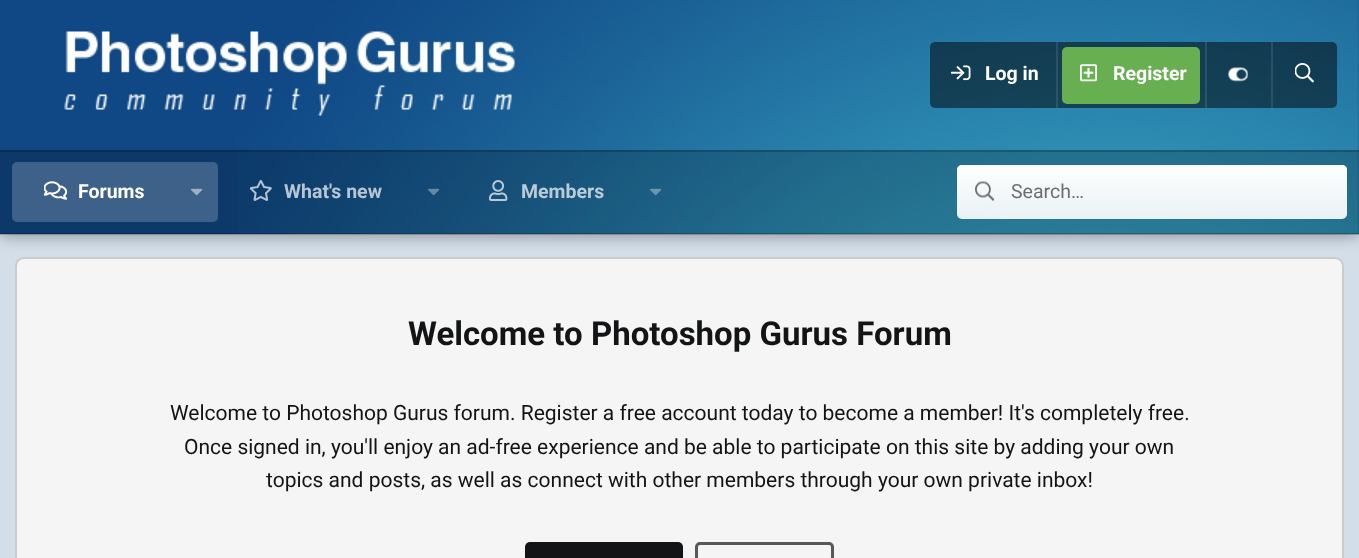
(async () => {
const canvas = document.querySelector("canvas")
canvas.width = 1359
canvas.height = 558
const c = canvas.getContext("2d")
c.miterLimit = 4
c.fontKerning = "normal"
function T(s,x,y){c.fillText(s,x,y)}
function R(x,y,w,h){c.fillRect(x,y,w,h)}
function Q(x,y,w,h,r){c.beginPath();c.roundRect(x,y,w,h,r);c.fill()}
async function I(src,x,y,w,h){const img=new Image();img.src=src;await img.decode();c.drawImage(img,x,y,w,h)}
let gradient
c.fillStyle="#d4dee9"
R(0,0,1359,558)
c.fillStyle="#f5f5f5"
c.beginPath()
c.roundRect(16,258,1327,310,8)
c.fill()
c.strokeStyle="#ccc"
c.lineWidth=2
c.stroke()
c.fillStyle="#00000059"
c.filter="blur(7.5px)"
c.beginPath()
c.rect(0,2,1359,234)
c.fill()
c.filter="none"
c.fillStyle="#104885"
R(0,0,1359,234)
await I("1.png",237,0,1122,234)
await I("2.png",64,31,451,85)
c.fillStyle="#00000080"
Q(930,42,407,66,5)
await I("3.png",951,65,20,16)
c.font="bold 19.5px Roboto"
c.fillStyle="#fff"
T("Log in",985,80)
c.fillStyle="#ffffff1a"
R(1056,42,2,66)
c.fillStyle="#67af51"
Q(1062,47,138,57,5)
await I("4.png",1080,64,17,18)
c.fillStyle="#fff"
T("Register",1113,80)
c.fillStyle="#ffffff1a"
R(1205,42,2,66)
await I("5.png",1228,67,20,15)
R(1271,42,2,66)
await I("6.png",1295,63,19,20)
c.fillStyle="#00000033"
R(0,150,1359,84)
R(0,150,1359,2)
R(0,233,1359,2)
c.fillStyle="#3d6188"
Q(12,162,206,60,5)
await I("7.png",44,181,24,19)
c.fillStyle="#fff"
T("Forums",78,198)
await I("8.png",191,188,12,8)
await I("9.png",249,180,23,21)
c.fillStyle="#b7c6d4"
T("What's new",284,198)
await I("10.png",428,188,12,8)
await I("11.png",489,180,19,21)
c.fillStyle="#baccd8"
T("Members",521,198)
await I("12.png",650,188,12,8)
c.fillStyle="#ffffffe6"
Q(957,165,390,54,5)
gradient = c.createLinearGradient(1152,165,1152,219)
gradient.addColorStop(0,"#fff")
gradient.addColorStop(1,"#ffffff00")
c.fillStyle = gradient
Q(957,165,390,54,5)
await I("13.png",975,181,20,20)
c.font="19.5px Roboto"
c.fillStyle="#6d6e6f"
T("Search…",1011,198)
c.font="bold 33px Roboto"
c.fillStyle="#121416"
T("Welcome to Photoshop Gurus Forum",408,345)
c.font="21px Roboto"
T("Welcome to Photoshop Gurus forum. Register a free account today to become a member! It's completely free.",170,420)
T("Once signed in, you'll enjoy an ad-free experience and be able to participate on this site by adding your own",184,454)
T("topics and posts, as well as connect with other members through your own private inbox!",266,487)
Q(525,542,158,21,5)
c.beginPath()
c.roundRect(696.5,543.5,136,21,3.5)
c.strokeStyle="#565859"
c.lineWidth=3
c.stroke()
})()
